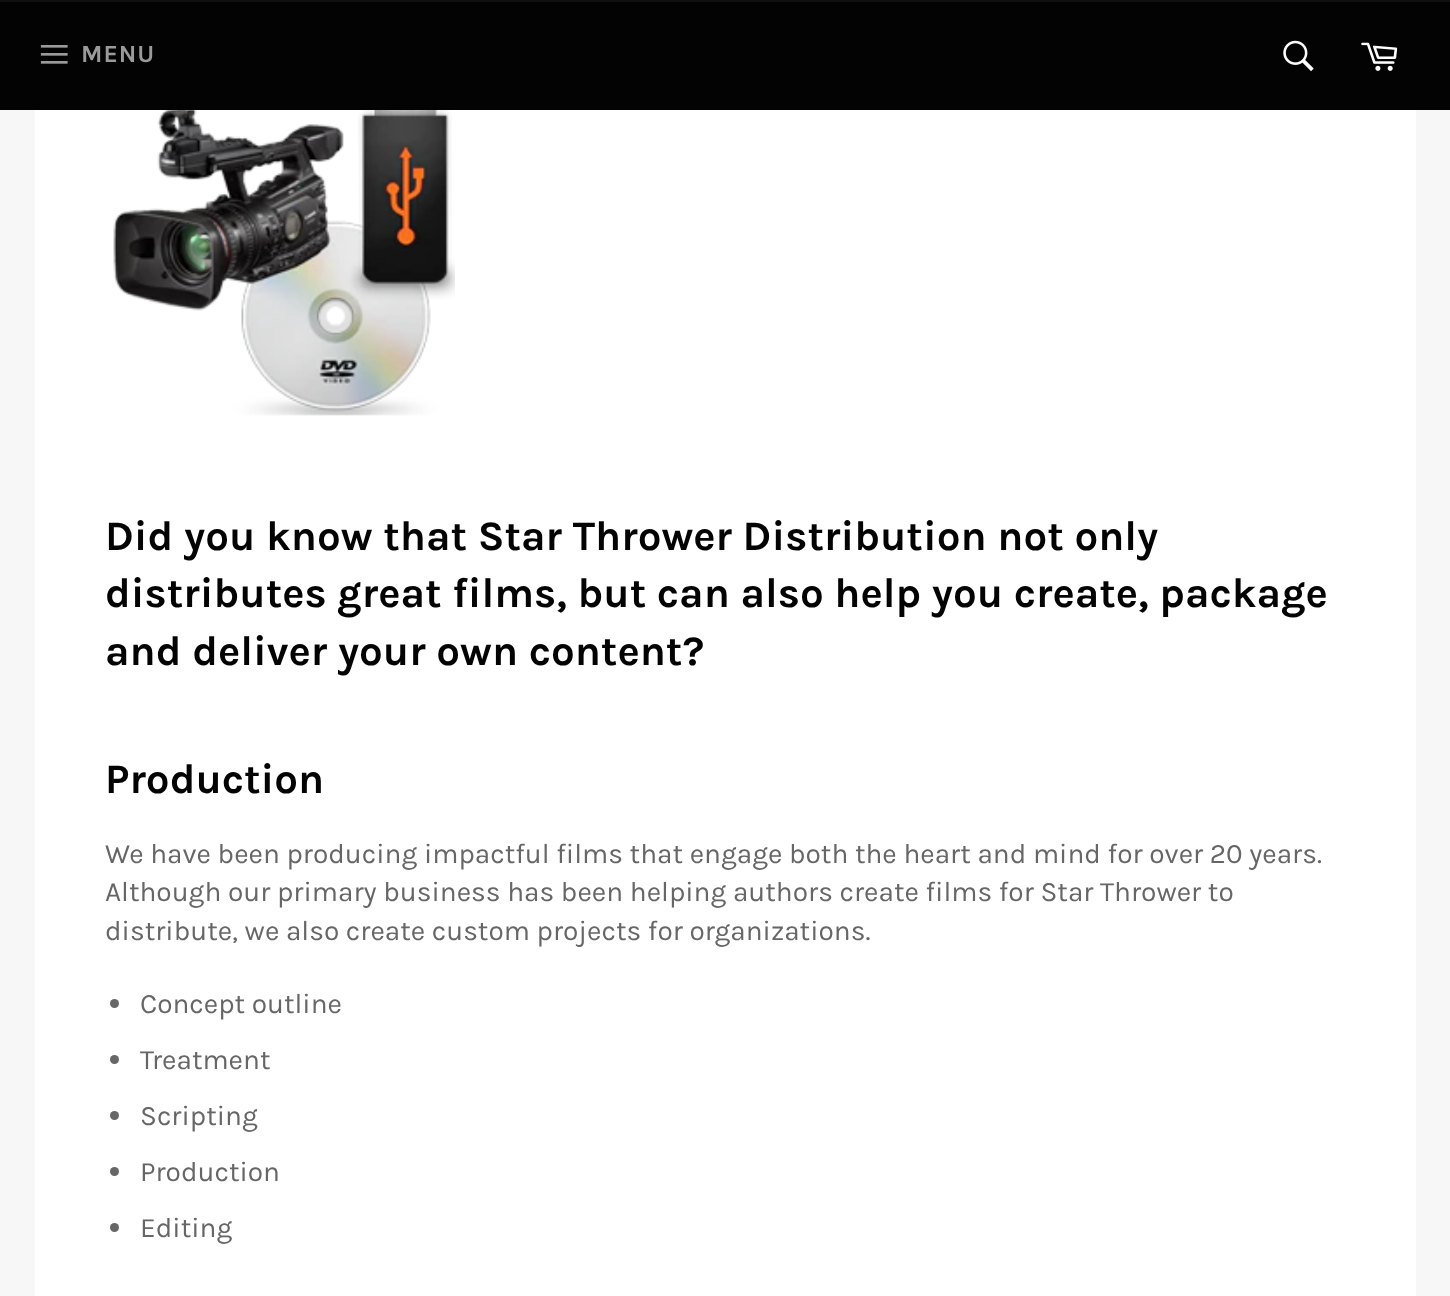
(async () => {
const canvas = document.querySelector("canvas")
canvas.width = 1450
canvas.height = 1296
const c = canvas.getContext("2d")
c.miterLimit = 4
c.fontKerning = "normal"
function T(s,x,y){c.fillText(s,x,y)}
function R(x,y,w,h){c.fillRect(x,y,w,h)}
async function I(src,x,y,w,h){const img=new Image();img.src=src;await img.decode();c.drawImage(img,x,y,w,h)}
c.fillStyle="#f7f7f7"
R(0,0,1450,1296)
c.fillStyle="#030303"
R(0,2,1450,108)
c.fillStyle="#101010"
R(0,0,1450,2)
await I("1.png",40,45,28,19)
c.letterSpacing="1px"
c.font="bold 24.5px Karla"
c.fillStyle="#9a9a9a"
T("MENU",81,62)
await I("2.png",1283,40,31,32)
await I("3.png",1361,42,37,29)
c.fillStyle="#fff"
R(35,110,1381,1186)
await I("4.png",113,110,342,306)
c.letterSpacing="0px"
c.font="bold 42px Karla"
c.fillStyle="#030303"
T("Did you know that Star Thrower Distribution not only",105,550)
T("distributes great films, but can also help you create, package",105,607)
T("and deliver your own content?",105,665)
T("Production",105,793)
c.font="28px Karla"
c.fillStyle="#666"
T("We have been producing impactful films that engage both the heart and mind for over 20 years.",105,863)
T("Although our primary business has been helping authors create films for Star Thrower to",105,901)
T("distribute, we also create custom projects for organizations.",105,940)
c.beginPath()
c.arc(114.5,1003.5,4.5,0,7)
c.fill()
T("Concept outline",140,1013)
c.beginPath()
c.arc(114.5,1059.5,4.5,0,7)
c.fill()
T("Treatment",140,1069)
c.beginPath()
c.arc(114.5,1115.5,4.5,0,7)
c.fill()
T("Scripting",140,1125)
c.beginPath()
c.arc(114.5,1171.5,4.5,0,7)
c.fill()
T("Production",140,1181)
c.beginPath()
c.arc(114.5,1227.5,4.5,0,7)
c.fill()
T("Editing",140,1237)
})()
